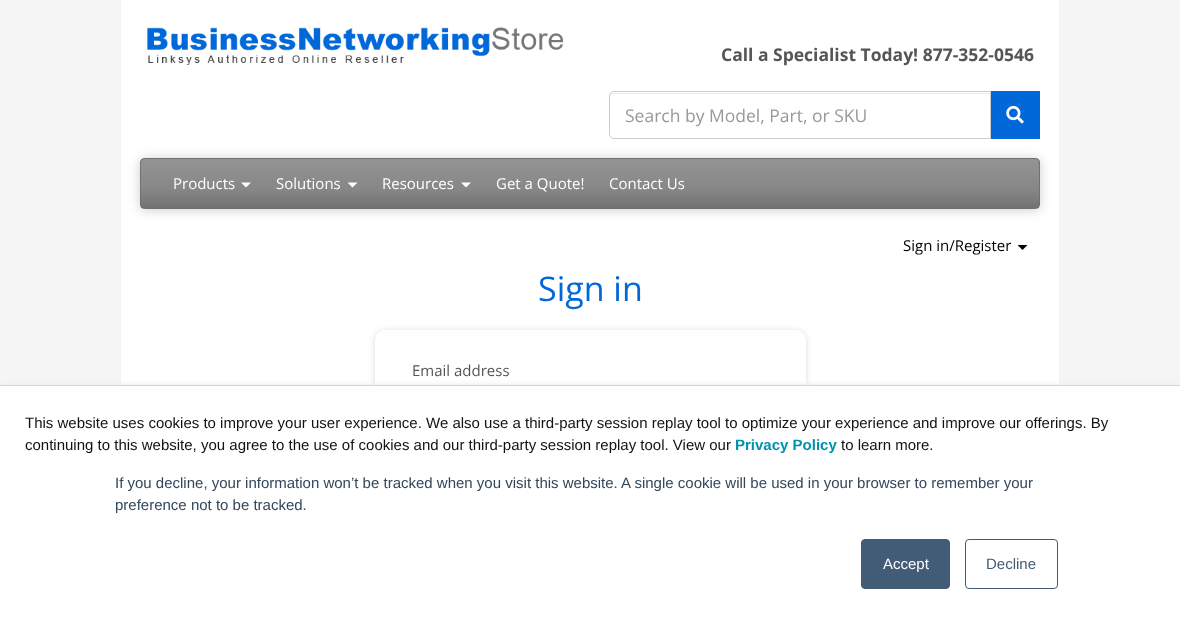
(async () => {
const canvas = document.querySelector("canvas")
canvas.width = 1180
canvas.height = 621
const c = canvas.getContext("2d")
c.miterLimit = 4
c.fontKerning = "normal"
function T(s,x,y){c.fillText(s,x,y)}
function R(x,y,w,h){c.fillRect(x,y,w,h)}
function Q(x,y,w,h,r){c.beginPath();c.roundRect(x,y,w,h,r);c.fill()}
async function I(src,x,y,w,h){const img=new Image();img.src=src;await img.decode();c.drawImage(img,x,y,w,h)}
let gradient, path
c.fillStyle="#f5f5f5"
R(0,0,1180,621)
c.fillStyle="#fff"
R(121,0,938,385)
await I("1.png",147,27,417,38)
c.font="bold 17.5px Open Sans"
c.fillStyle="#555"
T("Call a Specialist Today! 877-352-0546",721,61)
c.fillStyle="#ececec"
path = new Path2D("M614 94h376v-1h-376c-3 0-4 2-4 5c0-3 2-4 4-4z")
c.fill(path)
c.beginPath()
c.roundRect(609.5,91.5,381,47,[4.5,0,0,4.5])
c.strokeStyle="#ccc"
c.stroke()
c.font="17.5px Open Sans"
c.fillStyle="#999"
T("Search by Model, Part, or SKU",625,122)
c.fillStyle="#0068d9"
R(991,91,49,48)
await I("2.png",1006,105,18,19)
c.fillStyle="#00000033"
c.filter="blur(6px)"
c.beginPath()
c.roundRect(140,159,900,51,5)
c.fill()
c.filter="none"
c.save()
c.beginPath()
c.roundRect(140,158,900,51,5)
c.clip()
gradient = c.createLinearGradient(590,159,590,209)
gradient.addColorStop(0,"#949494")
gradient.addColorStop(.6,"#878787")
gradient.addColorStop(1,"#717171")
c.fillStyle = gradient
R(141,159,898,50)
c.restore()
c.fillStyle="#717171"
path = new Path2D("M145 158h890c3 0 5 2 5 4v42c0 3-2 5-5 5h-890c-3 0-5-2-5-5v-42c0-2 2-4 5-4zm0 1h890c2 0 4 1 4 3v42c0 3-2 5-4 5h-890c-2 0-4-2-4-5v-42c0-2 2-3 4-3z")
c.fill(path,"evenodd")
c.font="15px Open Sans"
c.fillStyle="#fff"
T("Products",173,189)
path = new Path2D("M241 182.5h10l-5 5z")
c.fill(path)
T("Solutions",276,189)
path = new Path2D("M347.5 182.5h10l-5 5z")
c.fill(path)
T("Resources",382,189)
path = new Path2D("M461 182.5h10l-5 5z")
c.fill(path)
T("Get a Quote!",496,189)
T("Contact Us",609,189)
c.fillStyle="#000"
T("Sign in/Register",903,251)
path = new Path2D("M1017.5 245h10l-5 5z")
c.fill(path)
c.font="34px Open Sans"
c.fillStyle="#0068d9"
T("Sign in",538,301)
c.fillStyle="#00000026"
c.filter="blur(3px)"
c.beginPath()
c.roundRect(375,331,431,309,10)
c.fill()
c.filter="none"
c.fillStyle="#fff"
Q(375,330,431,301,10)
c.font="15px Open Sans"
c.fillStyle="#555"
T("Email address",412,376)
c.fillStyle="#eaf0f6"
c.filter="blur(2px)"
c.beginPath()
c.rect(0,384,1180,236)
c.fill()
c.filter="none"
c.fillStyle="#fff"
R(0,386,1180,235)
c.fillStyle="#cbd6e2"
R(0,385,1180,1)
c.font="15px Liberation Sans"
c.fillStyle="#121212"
T("This website uses cookies to improve your user experience. We also use a third-party session replay tool to optimize your experience and improve our offerings. By",25,428)
T("continuing to this website, you agree to the use of cookies and our third-party session replay tool. View our",25,450)
c.font="bold 15px Liberation Sans"
c.fillStyle="#0091ae"
T("Privacy Policy",735,450)
c.font="15px Liberation Sans"
c.fillStyle="#121212"
T("to learn more.",841,450)
c.fillStyle="#33475b"
T("If you decline, your information won’t be tracked when you visit this website. A single cookie will be used in your browser to remember your",115,488)
T("preference not to be tracked.",115,510)
c.fillStyle="#425b76"
c.beginPath()
c.roundRect(861.5,539.5,88,49,3.5)
c.fill()
c.strokeStyle="#425b76"
c.stroke()
c.fillStyle="#fff"
T("Accept",883,569)
c.beginPath()
c.roundRect(965.5,539.5,92,49,3.5)
c.stroke()
c.fillStyle="#425b76"
T("Decline",986,569)
})()
